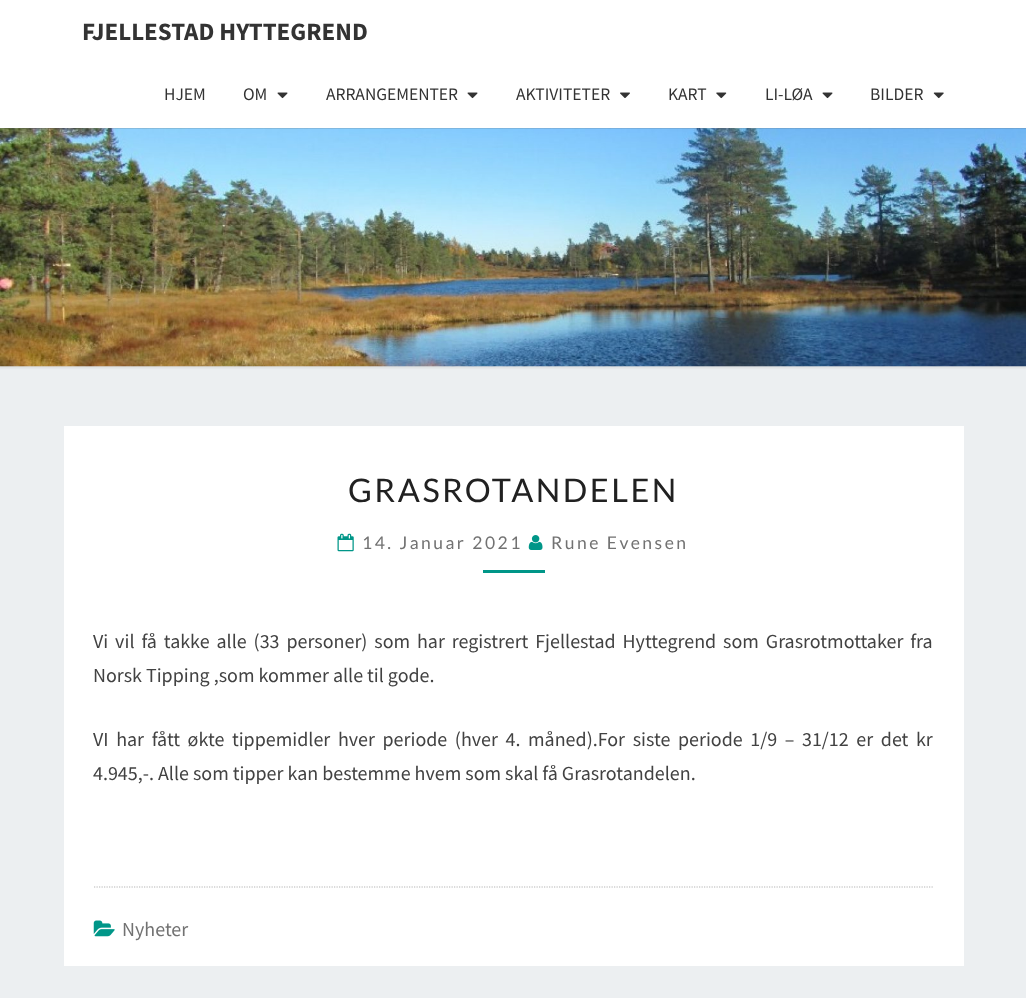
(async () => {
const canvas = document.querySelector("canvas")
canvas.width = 1026
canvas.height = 998
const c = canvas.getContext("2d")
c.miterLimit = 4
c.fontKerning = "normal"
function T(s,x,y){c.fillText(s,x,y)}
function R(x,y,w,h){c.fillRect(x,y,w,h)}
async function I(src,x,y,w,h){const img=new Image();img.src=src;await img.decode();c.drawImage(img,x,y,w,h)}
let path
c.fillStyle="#eceff1"
R(0,0,1026,998)
c.fillStyle="#b6b6b64d"
c.filter="blur(1px)"
c.beginPath()
c.rect(-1,126,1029,242)
c.fill()
c.filter="none"
await I("5.png",0,128,1026,239)
c.fillStyle="#64646433"
c.filter="blur(0.5px)"
c.beginPath()
c.rect(0,1,1026,128)
c.fill()
c.filter="none"
c.fillStyle="#fff"
R(0,0,1026,128)
c.font="bold 25px Source Sans Pro"
c.fillStyle="#333"
T("FJELLESTAD HYTTEGREND",82,40)
c.font="17.5px Source Sans Pro"
T("HJEM",164,100)
T("OM",243,100)
await I("1.png",277,92,11,7)
T("ARRANGEMENTER",326,100)
await I("1.png",467,92,11,7)
T("AKTIVITETER",516,100)
await I("2.png",620,92,10,6)
T("KART",668,100)
await I("3.png",716,92,11,7)
T("LI-LØA",765,100)
await I("1.png",822,92,11,7)
T("BILDER",870,100)
await I("4.png",933,92,11,7)
c.fillStyle="#fff"
R(64,426,900,540)
c.letterSpacing="2.5px"
c.font="32.5px Lato"
c.fillStyle="#212121"
T("GRASROTANDELEN",348,502)
await I("6.png",337,533,17,19)
c.font="17.5px Lato"
c.fillStyle="#727272"
T("14. Januar 2021",362,549)
await I("7.png",528,535,15,15)
T("Rune Evensen",551,549)
c.fillStyle="#009688"
R(483,570,62,3)
c.letterSpacing="0px"
c.wordSpacing="2.9px"
c.font="20px Source Sans Pro"
c.fillStyle="#424242"
T("Vi vil få takke alle (33 personer) som har registrert Fjellestad Hyttegrend som Grasrotmottaker fra",93,648)
c.wordSpacing="0px"
T("Norsk Tipping ,som kommer alle til gode.",93,682)
c.wordSpacing="3.6px"
T("VI har fått økte tippemidler hver periode (hver 4. måned).For siste periode 1/9 – 31/12 er det kr",93,746)
c.wordSpacing="0px"
T("4.945,-. Alle som tipper kan bestemme hvem som skal få Grasrotandelen.",93,780)
path = new Path2D("M94 887h840")
c.strokeStyle="#b6b6b6"
c.lineWidth=1.2
c.setLineDash([1.25,1.25])
c.stroke(path)
await I("8.png",93,920,22,17)
c.fillStyle="#727272"
T("Nyheter",122,936)
})()
